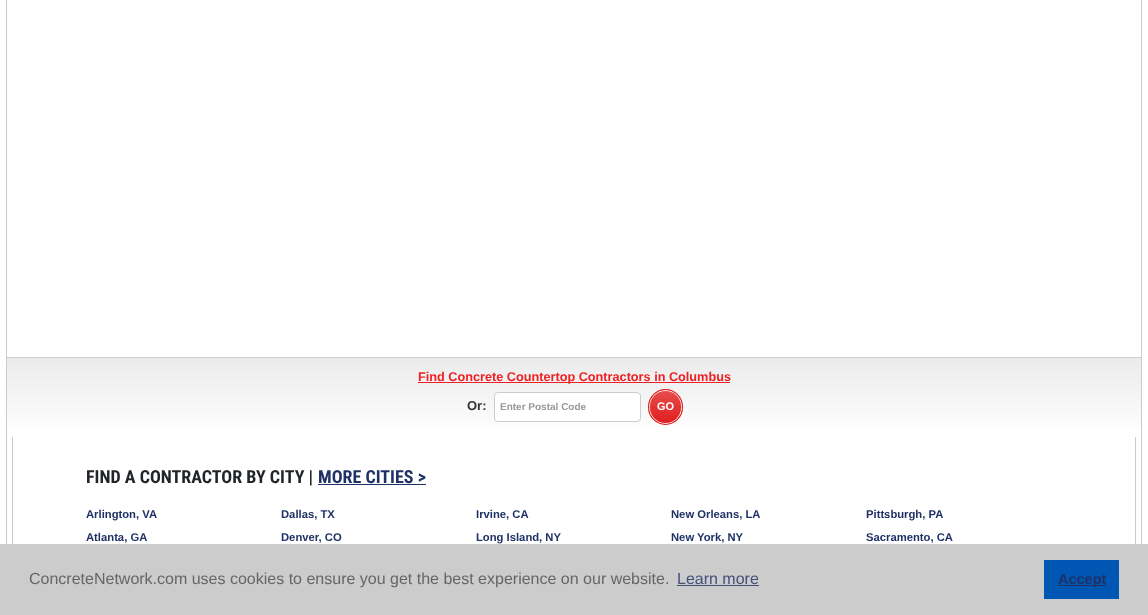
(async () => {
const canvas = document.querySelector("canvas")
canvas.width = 1148
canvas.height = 615
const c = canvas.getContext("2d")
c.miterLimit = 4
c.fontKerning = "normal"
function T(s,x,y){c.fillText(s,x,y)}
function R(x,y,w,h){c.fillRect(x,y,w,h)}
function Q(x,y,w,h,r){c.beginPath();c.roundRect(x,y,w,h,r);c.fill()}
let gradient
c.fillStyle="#fff"
R(0,0,1148,615)
c.fillStyle="#ccc"
R(1141,0,1,544)
R(6,0,1,544)
gradient = c.createLinearGradient(574,358,574,437)
gradient.addColorStop(0,"#ebebeb")
gradient.addColorStop(1,"#fff")
c.fillStyle = gradient
R(7,358,1134,69)
c.fillStyle="#ccc"
R(7,357,1134,1)
c.fillStyle="#ed2124"
R(418,382,312,1)
c.font="bold 12.7px Liberation Sans"
T("Find Concrete Countertop Contractors in Columbus",418,381)
c.font="bold 13px Liberation Sans"
c.fillStyle="#333"
T("Or:",467,410)
c.fillStyle="#fff"
c.beginPath()
c.roundRect(494.5,392.5,146,29,3.5)
c.fill()
c.strokeStyle="#ccc"
c.stroke()
c.font="bold 10px Liberation Sans"
c.fillStyle="#999"
T("Enter Postal Code",500,410)
c.beginPath()
c.roundRect(649,390,33,34,16.5)
c.strokeStyle="#df1e1e"
c.lineWidth=2
c.stroke()
c.beginPath()
c.roundRect(649.5,390.5,32,33,16)
c.strokeStyle="#fff"
c.lineWidth=1
c.stroke()
gradient = c.createLinearGradient(666,391,666,423)
gradient.addColorStop(0,"#e74c4c")
gradient.addColorStop(1,"#df1e1e")
c.fillStyle = gradient
Q(650,391,31,32,15.5)
c.font="bold 11px Liberation Sans"
c.fillStyle="#fff"
T("GO",657,410)
c.fillStyle="#ccc"
R(1135,437,1,107)
R(12,437,1,107)
c.font="bold 18px Roboto Condensed"
c.fillStyle="#212529"
T("FIND A CONTRACTOR BY CITY |",86,483)
c.fillStyle="#1f3165"
T("MORE CITIES >",318,483)
R(318,484,108,1)
c.font="bold 11.25px Liberation Sans"
T("Arlington, VA",86,518)
T("Atlanta, GA",86,541)
T("Dallas, TX",281,518)
T("Denver, CO",281,541)
T("Irvine, CA",476,518)
T("Long Island, NY",476,541)
T("New Orleans, LA",671,518)
T("New York, NY",671,541)
T("Pittsburgh, PA",866,518)
T("Sacramento, CA",866,541)
c.fillStyle="#ccc"
R(0,544,1148,71)
c.font="16px Liberation Sans"
c.fillStyle="#666"
T("ConcreteNetwork.com uses cookies to ensure you get the best experience on our website.",29,584)
c.fillStyle="#42507a"
T("Learn more",677,584)
R(677,585,82,1)
c.fillStyle="#0056b3"
R(1044,560,75,39)
c.fillStyle="#1f3165"
R(1058,585,48,1)
c.font="bold 14.5px Liberation Sans"
T("Accept",1058,584)
})()
